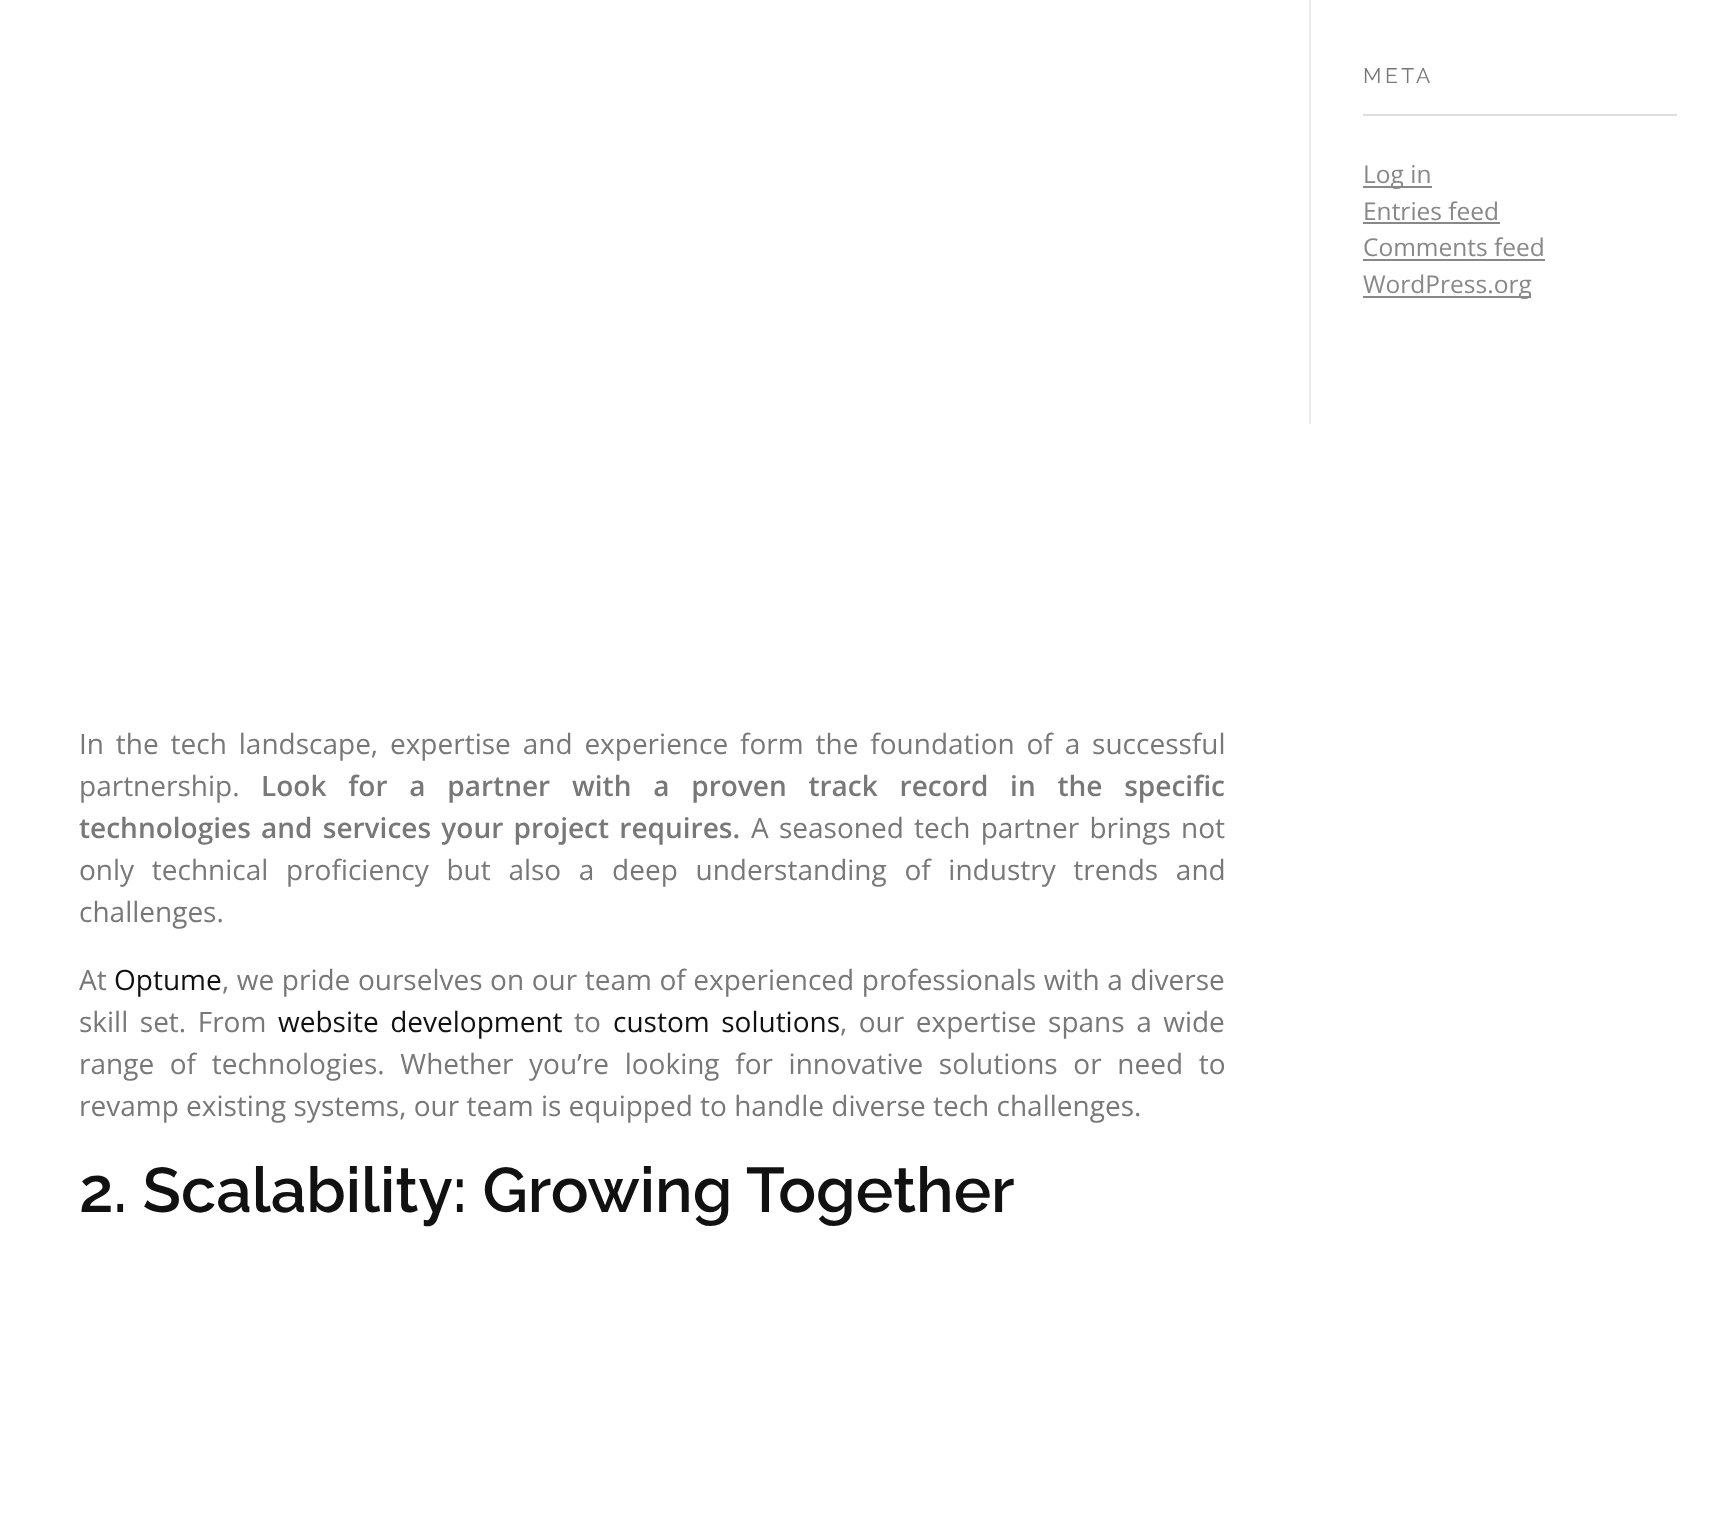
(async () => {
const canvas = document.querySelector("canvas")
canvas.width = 1729
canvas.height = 1519
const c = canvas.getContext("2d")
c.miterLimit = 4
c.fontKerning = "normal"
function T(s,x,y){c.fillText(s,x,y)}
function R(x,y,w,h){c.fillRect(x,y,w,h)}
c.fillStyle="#fff"
R(0,0,1729,1519)
c.fillStyle="#eaeaea"
R(1309,0,2,424)
c.fillStyle="#dedede"
R(1363,114,314,2)
c.letterSpacing="3.5px"
c.font="21px Raleway"
c.fillStyle="#787878"
T("META",1363,83)
c.fillStyle="#888"
R(1363,186,69,2)
c.letterSpacing="0px"
c.font="24.5px Open Sans"
T("Log in",1363,183)
T("Entries feed",1363,220)
R(1363,222,137,2)
T("Comments feed",1363,256)
R(1363,259,182,2)
R(1363,296,168,2)
T("WordPress.org",1363,293)
c.wordSpacing="4.6px"
c.font="28px Open Sans"
c.fillStyle="#787878"
T("In the tech landscape, expertise and experience form the foundation of a successful",79,754)
c.wordSpacing="0px"
T("partnership.",79,796)
c.wordSpacing="14.5px"
c.font="600 28px Open Sans"
T("Look for a partner with a proven track record in the specific",261,796)
c.wordSpacing="3px"
T("technologies and services your project requires.",79,838)
c.font="28px Open Sans"
T("A seasoned tech partner brings not",751,838)
c.wordSpacing="10.4px"
T("only technical proficiency but also a deep understanding of industry trends and",79,880)
c.wordSpacing="0px"
T("challenges.",79,922)
T("At",79,990)
c.fillStyle="#111"
T("Optume",114,990)
c.wordSpacing="0.3px"
c.fillStyle="#787878"
T(", we pride ourselves on our team of experienced professionals with a diverse",222,990)
c.wordSpacing="4.25px"
T("skill set. From",79,1032)
c.fillStyle="#111"
T("website development",278,1032)
c.wordSpacing="0px"
c.fillStyle="#787878"
T("to",574,1032)
c.wordSpacing="4.25px"
c.fillStyle="#111"
T("custom solutions",613,1032)
c.fillStyle="#787878"
T(", our expertise spans a wide",840,1032)
c.wordSpacing="8.4px"
T("range of technologies. Whether you’re looking for innovative solutions or need to",79,1074)
c.wordSpacing="0px"
T("revamp existing systems, our team is equipped to handle diverse tech challenges.",79,1116)
c.font="600 63px Raleway"
c.fillStyle="#111"
T("2. Scalability: Growing Together",79,1212)
})()
